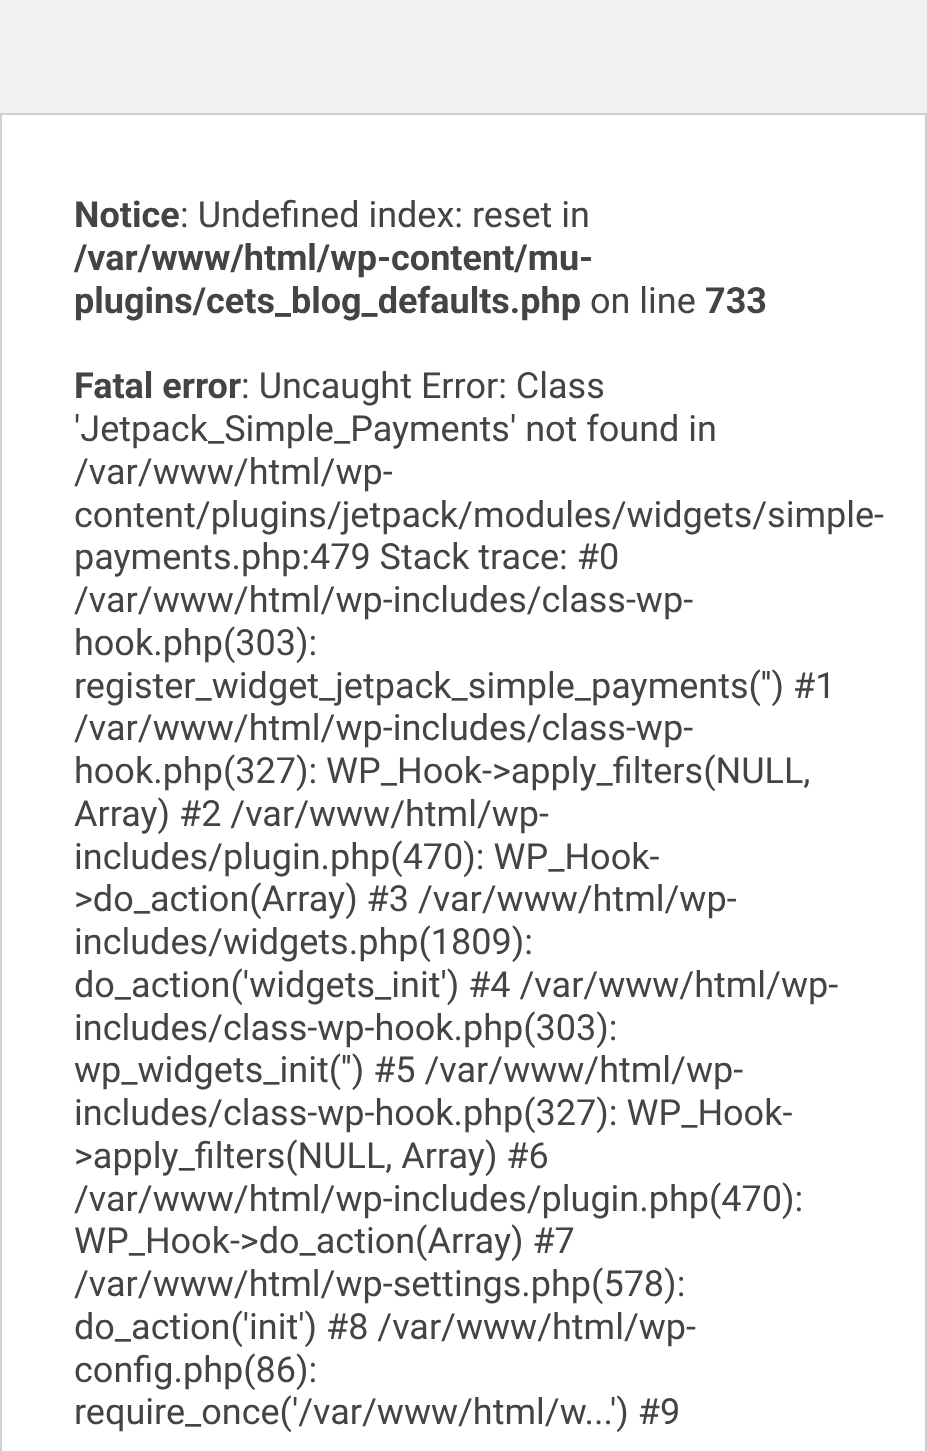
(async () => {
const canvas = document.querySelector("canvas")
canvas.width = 927
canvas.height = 1451
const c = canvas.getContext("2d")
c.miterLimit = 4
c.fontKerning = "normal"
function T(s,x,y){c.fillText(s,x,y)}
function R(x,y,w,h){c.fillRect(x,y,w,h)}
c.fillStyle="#f1f1f1"
R(0,0,927,1451)
c.fillStyle="#fff"
c.beginPath()
c.rect(1,114,925,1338)
c.fill()
c.strokeStyle="#ccd0d4"
c.lineWidth=2
c.stroke()
c.font="bold 36px Roboto"
c.fillStyle="#444"
T("Notice",74,227)
c.font="36px Roboto"
T(": Undefined index: reset in",180,227)
c.font="bold 36px Roboto"
T("/var/www/html/wp-content/mu-",74,270)
T("plugins/cets_blog_defaults.php",74,313)
c.font="36px Roboto"
T("on line",590,313)
c.font="bold 36px Roboto"
T("733",705,313)
T("Fatal error",74,398)
c.font="36px Roboto"
T(": Uncaught Error: Class",241,398)
T("'Jetpack_Simple_Payments' not found in",74,441)
T("/var/www/html/wp-",74,484)
T("content/plugins/jetpack/modules/widgets/simple-",74,527)
T("payments.php:479 Stack trace: #0",74,569)
T("/var/www/html/wp-includes/class-wp-",74,612)
T("hook.php(303):",74,655)
T("register_widget_jetpack_simple_payments('') #1",74,698)
T("/var/www/html/wp-includes/class-wp-",74,740)
T("hook.php(327): WP_Hook->apply_filters(NULL,",74,783)
T("Array) #2 /var/www/html/wp-",74,826)
T("includes/plugin.php(470): WP_Hook-",74,869)
T(">do_action(Array) #3 /var/www/html/wp-",74,911)
T("includes/widgets.php(1809):",74,954)
T("do_action('widgets_init') #4 /var/www/html/wp-",74,997)
T("includes/class-wp-hook.php(303):",74,1040)
T("wp_widgets_init('') #5 /var/www/html/wp-",74,1082)
T("includes/class-wp-hook.php(327): WP_Hook-",74,1125)
T(">apply_filters(NULL, Array) #6",74,1168)
T("/var/www/html/wp-includes/plugin.php(470):",74,1211)
T("WP_Hook->do_action(Array) #7",74,1253)
T("/var/www/html/wp-settings.php(578):",74,1296)
T("do_action('init') #8 /var/www/html/wp-",74,1339)
T("config.php(86):",74,1382)
T("require_once('/var/www/html/w...') #9",74,1424)
})()
